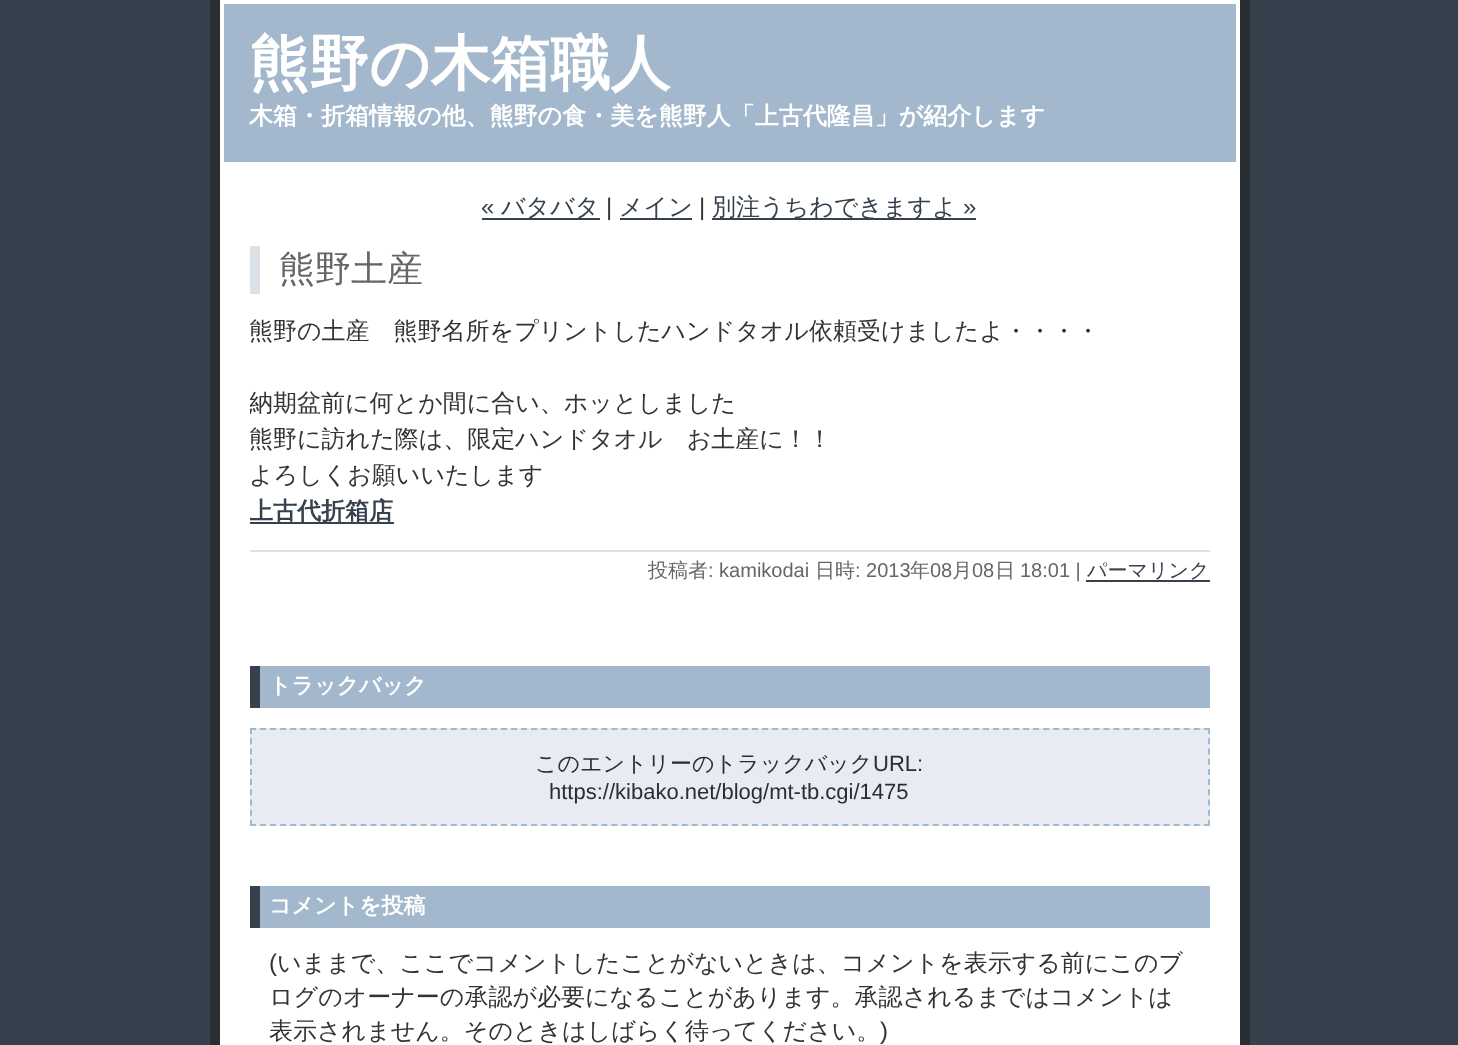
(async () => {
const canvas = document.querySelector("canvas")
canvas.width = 1458
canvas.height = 1045
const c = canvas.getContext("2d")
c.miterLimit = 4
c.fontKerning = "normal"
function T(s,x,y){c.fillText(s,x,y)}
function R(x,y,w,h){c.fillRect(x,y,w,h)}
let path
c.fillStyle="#36414d"
R(0,0,1458,1045)
c.fillStyle="#fff"
R(220,162,1020,883)
c.fillStyle="#292e33"
R(1240,0,10,1045)
R(210,0,10,1045)
c.fillStyle="#a3b8cc"
R(224,4,1012,158)
c.fillStyle="#fff"
R(220,0,1020,4)
R(1236,0,4,162)
R(220,0,4,162)
c.font="bold 60px WenQuanYi Zen Hei"
T("熊野の木箱職人",249,84)
c.font="bold 24px WenQuanYi Zen Hei"
T("木箱・折箱情報の他、熊野の食・美を熊野人「上古代隆昌」が紹介します",249,124)
c.font="24px Liberation Sans"
c.fillStyle="#36414d"
T("«",481,215)
R(482,218,118,2)
c.font="500 24px WenQuanYi Zen Hei"
T("バタバタ",501,215)
c.font="24px Liberation Sans"
c.fillStyle="#333"
T("|",606,215)
c.fillStyle="#36414d"
R(620,218,72,2)
c.font="500 24px WenQuanYi Zen Hei"
T("メイン",619,215)
c.font="24px Liberation Sans"
c.fillStyle="#333"
T("|",699,215)
c.fillStyle="#36414d"
R(712,218,264,2)
c.font="500 24px WenQuanYi Zen Hei"
T("別注うちわできますよ",712,215)
c.font="24px Liberation Sans"
T("»",963,215)
c.fillStyle="#dae0e6"
R(250,246,10,48)
c.font="500 36px WenQuanYi Zen Hei"
c.fillStyle="#666"
T("熊野土産",279,281)
c.font="500 24px WenQuanYi Zen Hei"
c.fillStyle="#333"
T("熊野の土産　熊野名所をプリントしたハンドタオル依頼受けましたよ・・・・",249,339)
c.save()
c.beginPath()
c.rect(250,246,960,380)
c.clip()
T("納期盆前に何とか間に合い、ホッとしました",249,411)
c.restore()
T("熊野に訪れた際は、限定ハンドタオル　お土産に！！",249,447)
T("よろしくお願いいたします",249,483)
c.fillStyle="#36414d"
R(250,522,144,2)
c.save()
c.beginPath()
c.rect(250,246,960,380)
c.clip()
c.font="bold 24px WenQuanYi Zen Hei"
T("上古代折箱店",249,519)
c.restore()
c.fillStyle="#dae0e6"
R(250,550,960,2)
c.font="500 20px WenQuanYi Zen Hei"
c.fillStyle="#666"
T("投稿者",648,577)
c.font="20px Liberation Sans"
T(": kamikodai",708,577)
c.font="500 20px WenQuanYi Zen Hei"
T("日時",815,577)
c.font="20px Liberation Sans"
T(": 2013",855,577)
c.font="500 20px WenQuanYi Zen Hei"
T("年",910,577)
c.font="20px Liberation Sans"
T("08",930,577)
c.font="500 20px WenQuanYi Zen Hei"
T("月",952,577)
c.font="20px Liberation Sans"
T("08",972,577)
c.font="500 20px WenQuanYi Zen Hei"
T("日",995,577)
c.font="20px Liberation Sans"
T("18:01 |",1020,577)
c.font="500 20px WenQuanYi Zen Hei"
c.fillStyle="#36414d"
T("パーマリンク",1087,577)
R(1086,580,124,2)
c.fillStyle="#a3b8cc"
R(260,666,950,42)
c.fillStyle="#36414d"
R(250,666,10,42)
c.font="bold 22px WenQuanYi Zen Hei"
c.fillStyle="#fff"
T("トラックバック",269,693)
c.fillStyle="#e6ecf2"
R(250,728,960,98)
path = new Path2D("M250 729h960")
c.strokeStyle="#a3b8cc"
c.lineWidth=2
c.setLineDash([6,4.04])
c.stroke(path)
path = new Path2D("M1209 728v98")
c.setLineDash([6,4.22])
c.stroke(path)
path = new Path2D("M250 825h960")
c.setLineDash([6,4.04])
c.stroke(path)
path = new Path2D("M251 728v98")
c.setLineDash([6,4.22])
c.stroke(path)
c.font="500 22px WenQuanYi Zen Hei"
c.fillStyle="#292e33"
T("このエントリーのトラックバック",535,771)
c.font="22px Liberation Sans"
T("URL:",873,771)
T("https://kibako.net/blog/mt-tb.cgi/1475",549,799)
c.fillStyle="#a3b8cc"
R(260,886,950,42)
c.fillStyle="#36414d"
R(250,886,10,42)
c.font="bold 22px WenQuanYi Zen Hei"
c.fillStyle="#fff"
T("コメントを投稿",269,913)
c.font="24px Liberation Sans"
c.fillStyle="#333"
T("(",269,971)
c.font="500 24px WenQuanYi Zen Hei"
T("いままで、ここでコメントしたことがないときは、コメントを表示する前にこのブ",277,971)
T("ログのオーナーの承認が必要になることがあります。承認されるまではコメントは",269,1005)
T("表示されません。そのときはしばらく待ってください。",269,1039)
c.font="24px Liberation Sans"
T(")",880,1039)
})()
